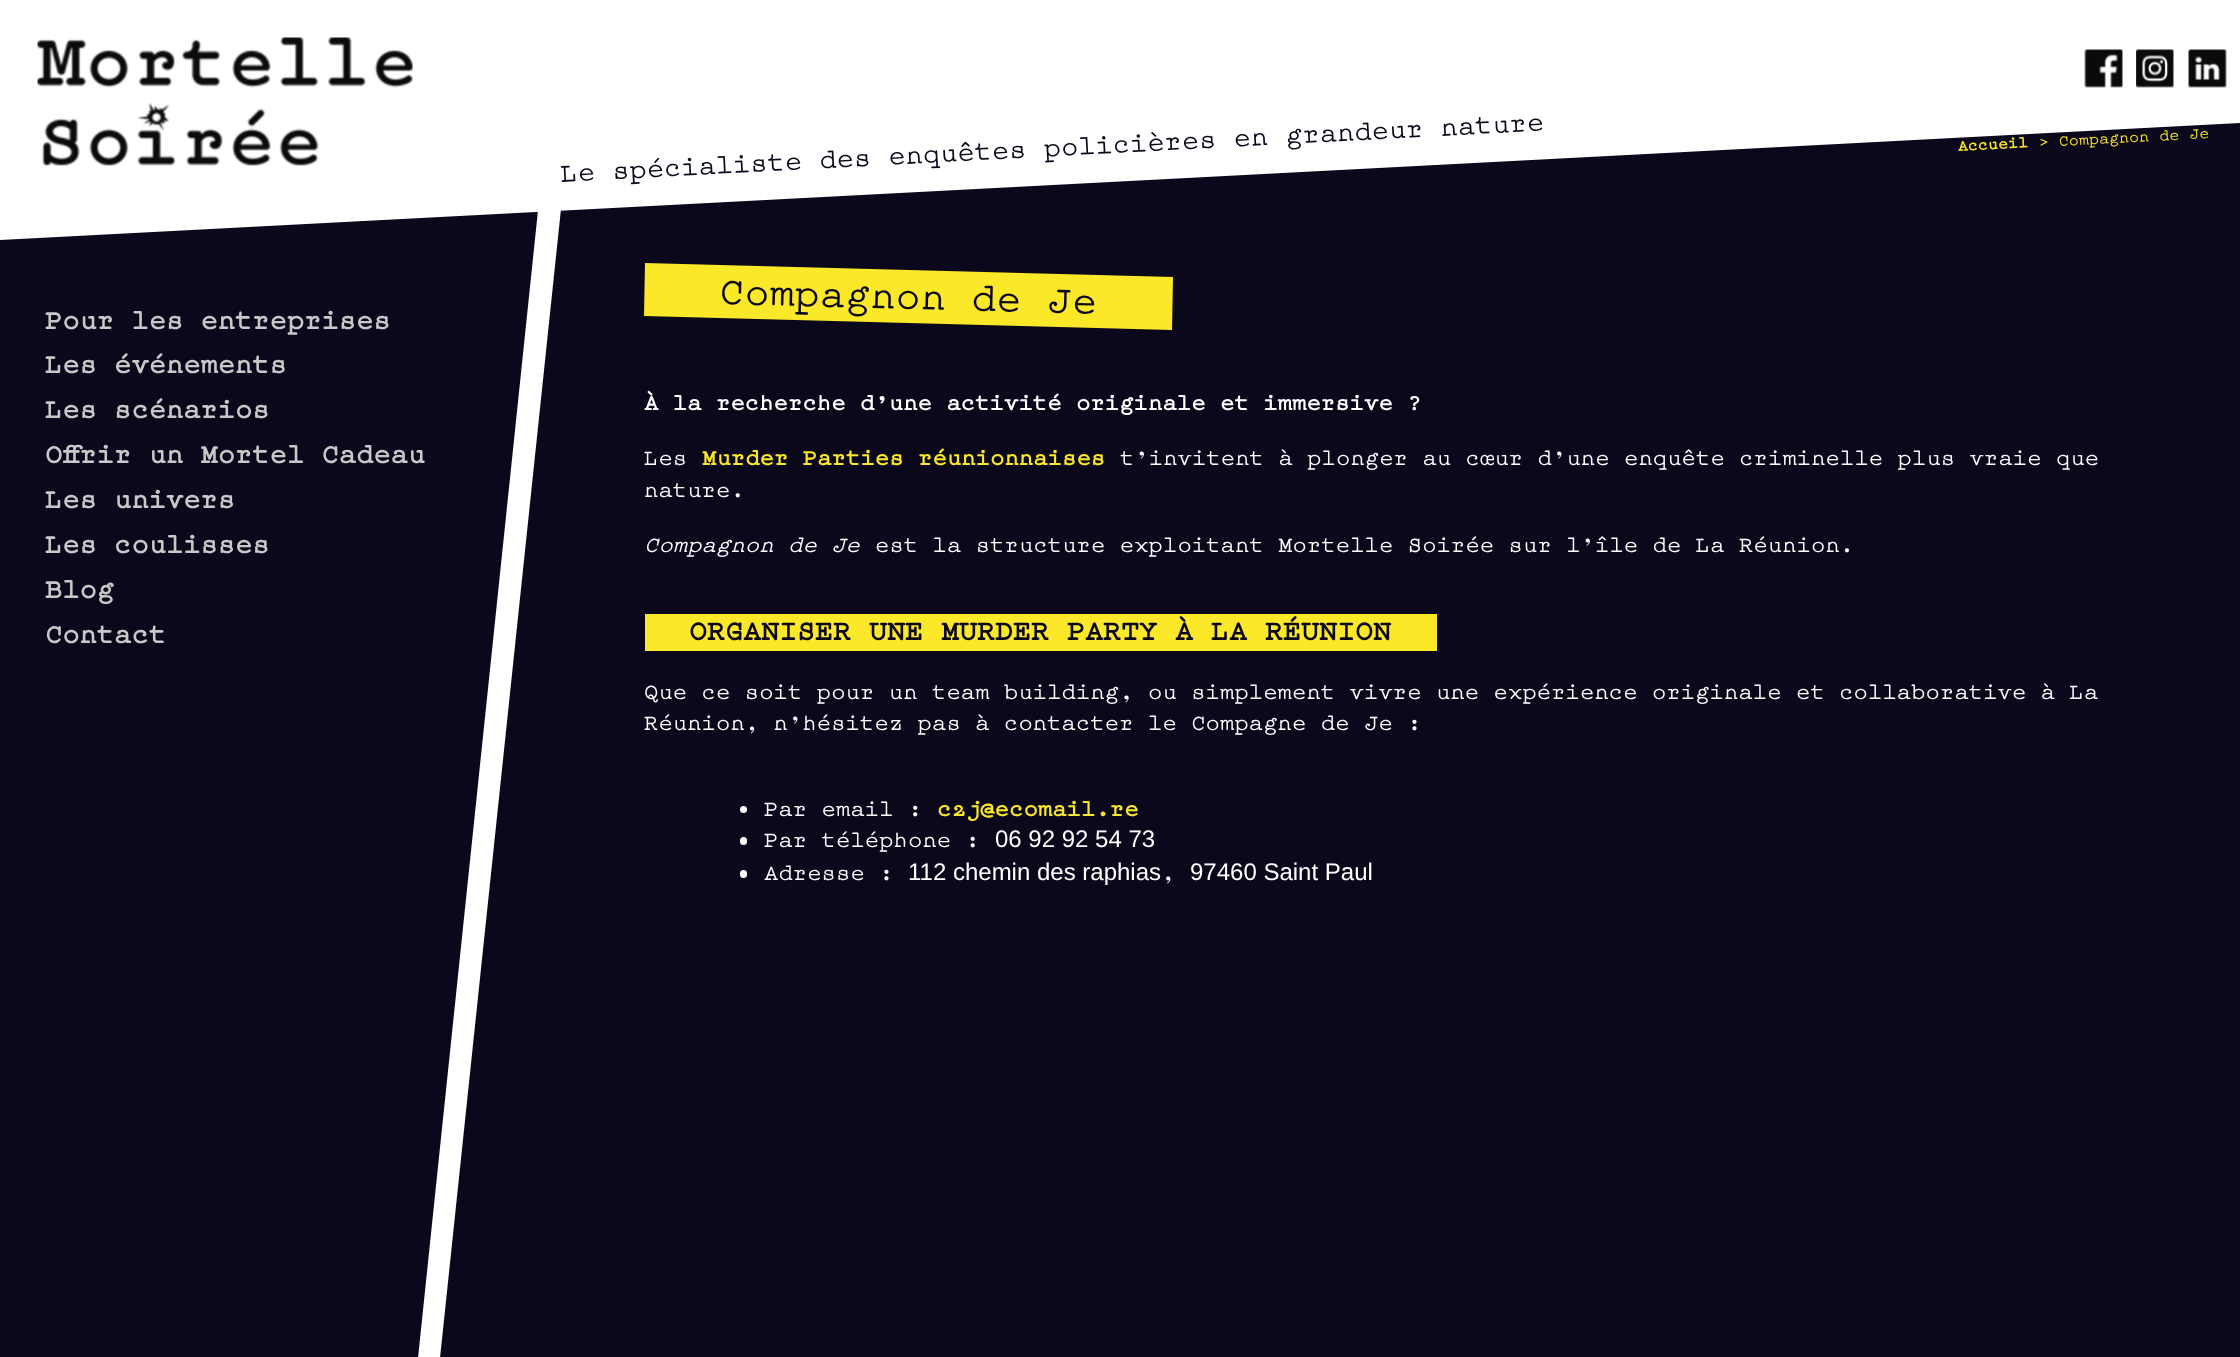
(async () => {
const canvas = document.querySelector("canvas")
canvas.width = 2240
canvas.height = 1357
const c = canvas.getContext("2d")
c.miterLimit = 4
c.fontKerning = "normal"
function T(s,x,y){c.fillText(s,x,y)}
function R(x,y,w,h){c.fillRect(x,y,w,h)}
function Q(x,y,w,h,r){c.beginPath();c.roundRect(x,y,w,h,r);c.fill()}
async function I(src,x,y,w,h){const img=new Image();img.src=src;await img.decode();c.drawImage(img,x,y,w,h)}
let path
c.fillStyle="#0c081b"
R(0,0,2240,1357)
c.fillStyle="#fff"
path = new Path2D("M560 0h23l-143 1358h-22z")
c.fill(path)
path = new Path2D("M0 0l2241-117v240l-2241 117z")
c.fill(path)
await I("1.png",37,37,376,129)
await I("2.png",2084,49,39,39)
await I("3.png",2136,49,38,39)
await I("4.png",2188,49,39,39)
c.font="28.8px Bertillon"
c.fillStyle="#0c081b"
c.save()
c.translate(561,182)
c.rotate(-3 * Math.PI / 180)
c.fillText("Le spécialiste des enquêtes policières en grandeur nature",0,0)
c.restore()
c.font="bold 16.75px Bertillon"
c.fillStyle="#fbe828"
c.save()
c.translate(1958,151)
c.rotate(-3 * Math.PI / 180)
c.fillText("Accueil",0,0)
c.restore()
c.font="16.75px Bertillon"
c.save()
c.translate(2039,147)
c.rotate(-3 * Math.PI / 180)
c.fillText("> Compagnon de Je",0,0)
c.restore()
c.font="bold 28.8px Bertillon"
c.fillStyle="#c8c8c8"
T("Pour les entreprises",45,329)
T("Les événements",45,373)
T("Les scénarios",45,418)
T("Offrir un Mortel Cadeau",45,463)
T("Les univers",45,508)
T("Les coulisses",45,553)
T("Blog",45,598)
T("Contact",45,643)
c.fillStyle="#fbe828"
path = new Path2D("M645 263l528 14l-1 53l-528-14z")
c.fill(path)
c.font="42px Bertillon"
c.fillStyle="#0c081b"
c.save()
c.translate(719,304)
c.rotate(1.5 * Math.PI / 180)
c.fillText("Compagnon de Je",0,0)
c.restore()
c.font="bold 24px Bertillon"
c.fillStyle="#fff"
T("À la recherche d’une activité originale et immersive ?",644,410)
c.font="24px Bertillon"
T("Les",644,465)
c.font="bold 24px Bertillon"
c.fillStyle="#fbe828"
T("Murder Parties réunionnaises",702,465)
c.font="24px Bertillon"
c.fillStyle="#fff"
T("t’invitent à plonger au cœur d’une enquête criminelle plus vraie que",1120,465)
T("nature.",644,497)
c.font="italic 24px Bertillon"
T("Compagnon de Je",644,552)
c.font="24px Bertillon"
T("est la structure exploitant Mortelle Soirée sur l’île de La Réunion.",875,552)
c.fillStyle="#fbe828"
R(645,614,792,37)
c.font="bold 30px Bertillon"
c.fillStyle="#0c081b"
T("ORGANISER UNE MURDER PARTY À LA RÉUNION",689,640)
c.font="24px Bertillon"
c.fillStyle="#fff"
T("Que ce soit pour un team building, ou simplement vivre une expérience originale et collaborative à La",644,699)
T("Réunion, n’hésitez pas à contacter le Compagne de Je :",644,730)
c.beginPath()
c.arc(743.5,809.5,3.5,0,7)
c.fill()
T("Par email :",764,816)
c.font="bold 24px Bertillon"
c.fillStyle="#fbe828"
T("c2j@ecomail.re",937,816)
c.fillStyle="#fff"
Q(740,837,7,8,3.5)
c.font="24px Bertillon"
T("Par téléphone :",764,847)
c.font="24px Liberation Sans"
T("06 92 92 54 73",995,847)
Q(740,870,7,8,3.5)
c.font="24px Bertillon"
T("Adresse :",764,880)
c.font="24px Liberation Sans"
T("112 chemin des raphias",908,880)
T("97460 Saint Paul",1190,880)
c.font="24px Bertillon"
T(",",1161,880)
})()
